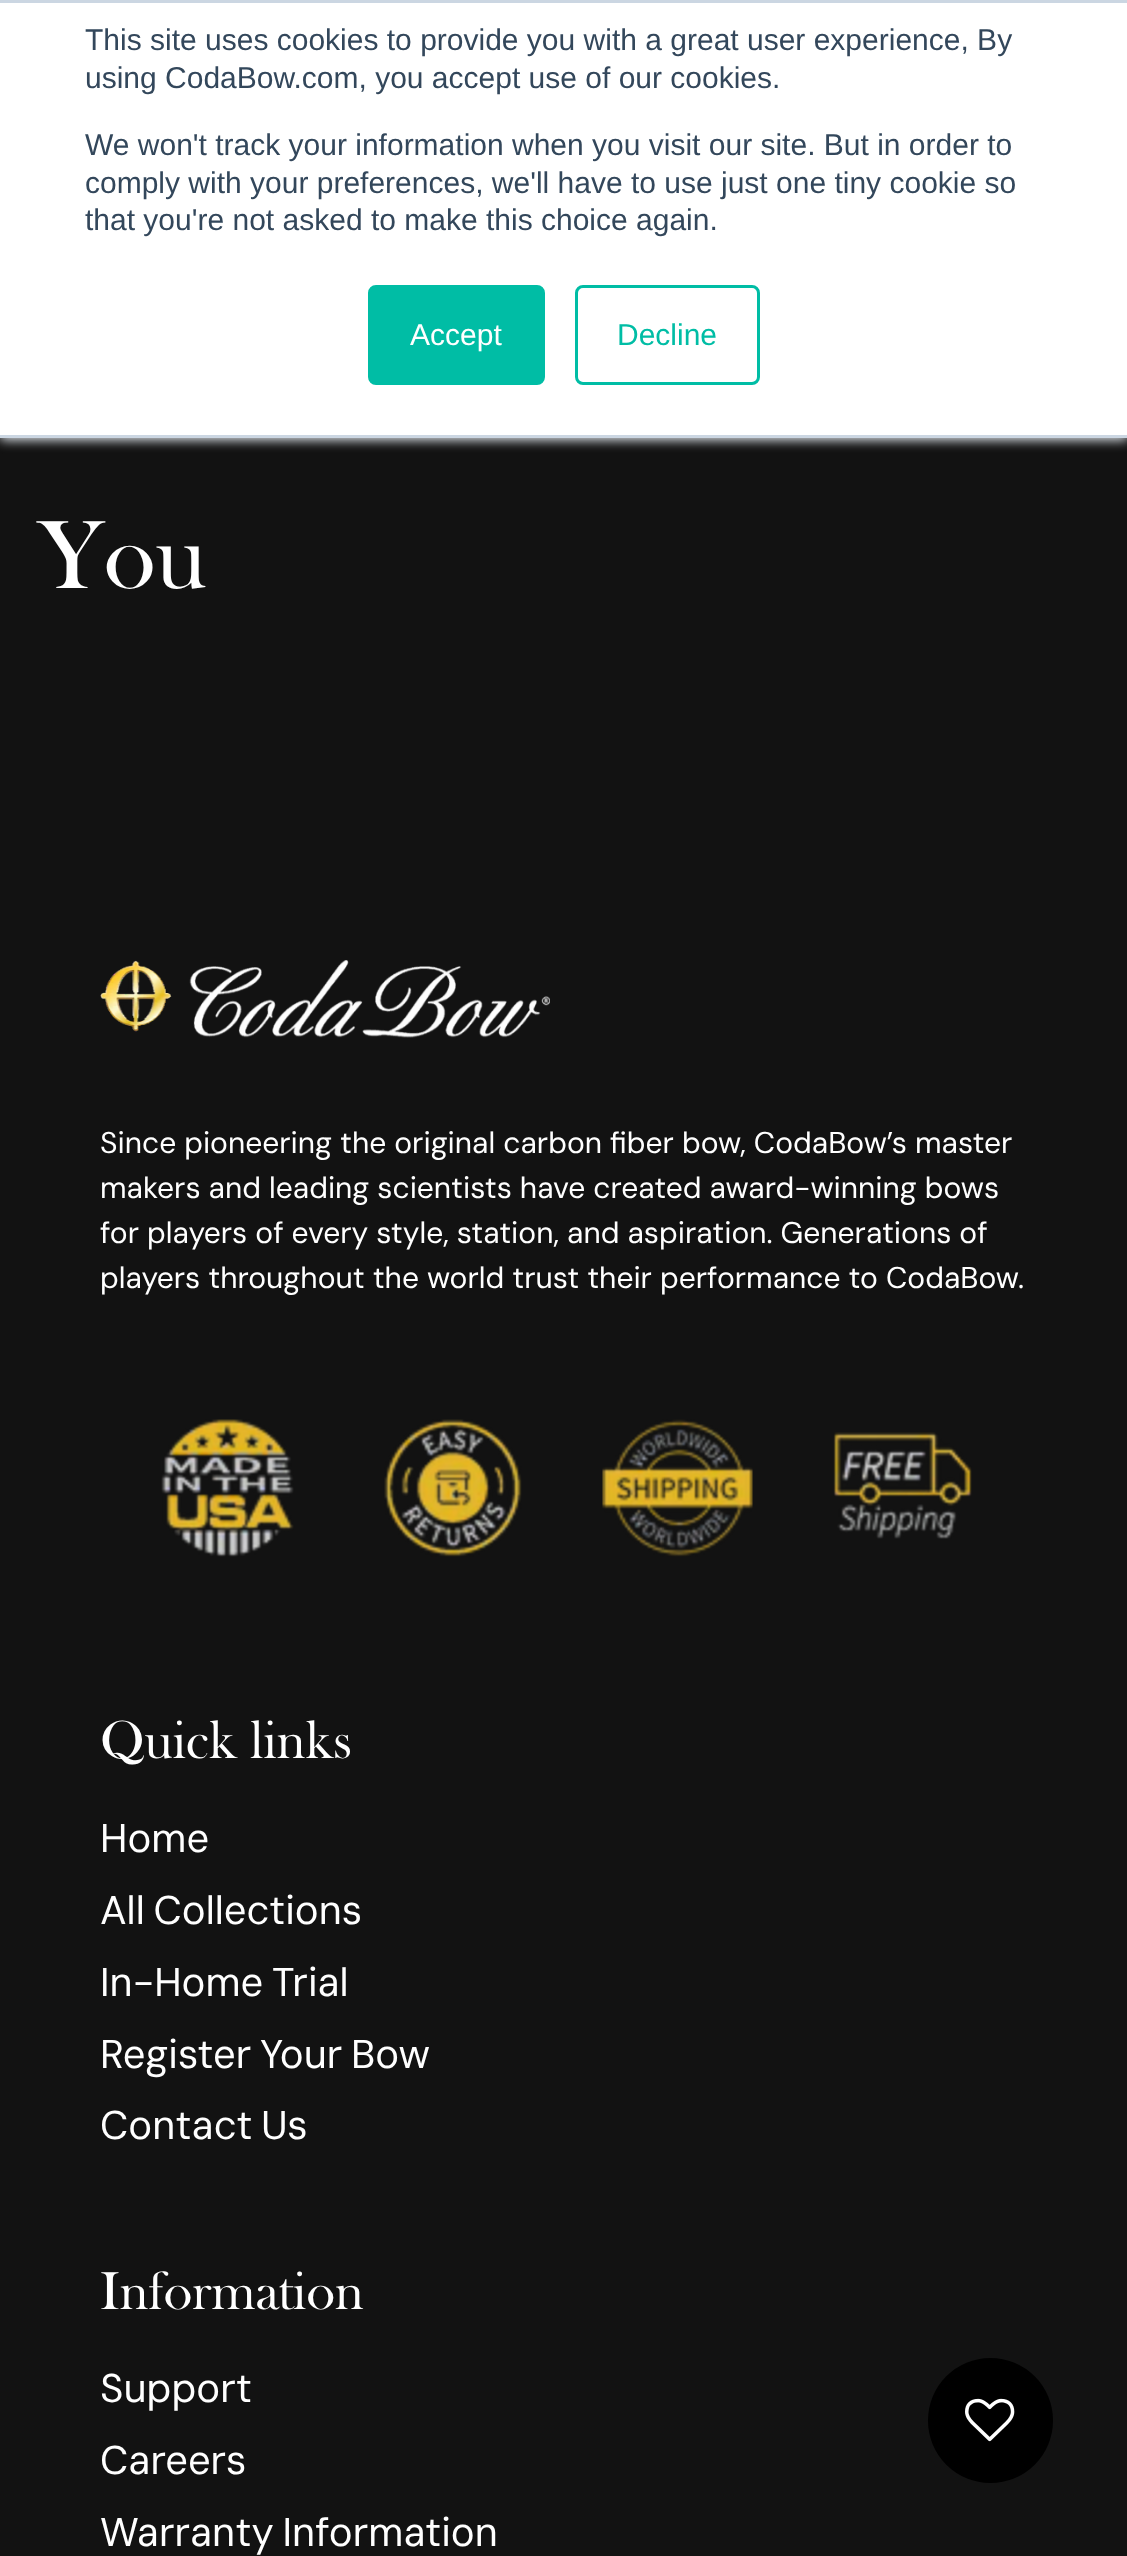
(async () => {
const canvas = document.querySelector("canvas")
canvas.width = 1127
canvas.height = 2556
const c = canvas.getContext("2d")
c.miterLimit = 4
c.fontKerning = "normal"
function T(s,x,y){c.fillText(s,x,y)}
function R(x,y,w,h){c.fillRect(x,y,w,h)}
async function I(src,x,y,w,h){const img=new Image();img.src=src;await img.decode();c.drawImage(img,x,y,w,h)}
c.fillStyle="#121212"
R(0,0,1127,2556)
c.fillStyle="#eaf0f6"
c.filter="blur(6px)"
c.beginPath()
c.rect(0,3,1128,437)
c.fill()
c.filter="none"
c.fillStyle="#fff"
R(0,3,1127,432)
c.fillStyle="#cbd6e2"
R(0,0,1127,3)
R(0,435,1127,3)
c.font="30px Liberation Sans"
c.fillStyle="#33475b"
T("This site uses cookies to provide you with a great user experience, By",85,50)
T("using CodaBow.com, you accept use of our cookies.",85,88)
T("We won't track your information when you visit our site. But in order to",85,155)
T("comply with your preferences, we'll have to use just one tiny cookie so",85,193)
T("that you're not asked to make this choice again.",85,230)
c.fillStyle="#00bda5"
c.beginPath()
c.roundRect(369.5,286.5,174,97,6.5)
c.fill()
c.strokeStyle="#00bda5"
c.lineWidth=3
c.stroke()
c.fillStyle="#fff"
T("Accept",410,345)
c.beginPath()
c.roundRect(576.5,286.5,182,97,6.5)
c.stroke()
c.fillStyle="#00bda5"
T("Decline",617,345)
c.font="100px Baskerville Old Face"
c.fillStyle="#fff"
T("You",38,588)
await I("1.png",100,960,72,72)
await I("2.png",189,960,361,78)
c.font="30px DM Sans"
T("Since pioneering the original carbon fiber bow, CodaBow’s master",100,1153)
T("makers and leading scientists have created award-winning bows",100,1198)
T("for players of every style, station, and aspiration. Generations of",100,1243)
T("players throughout the world trust their performance to CodaBow.",100,1288)
await I("3.png",161,1419,133,138)
await I("4.png",384,1419,138,138)
await I("5.png",602,1419,151,138)
await I("6.png",833,1432,139,107)
c.font="55px Baskerville Old Face"
T("Quick links",100,1758)
c.font="40px 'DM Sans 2'"
T("Home",100,1852)
c.wordSpacing="-2px"
T("All Collections",100,1924)
T("In-Home Trial",100,1996)
T("Register Your Bow",100,2068)
T("Contact Us",100,2139)
c.wordSpacing="0px"
c.font="55px Baskerville Old Face"
T("Information",100,2309)
c.font="40px 'DM Sans 2'"
T("Support",100,2402)
T("Careers",100,2474)
c.wordSpacing="-2px"
T("Warranty Information",100,2546)
c.fillStyle="#000"
c.beginPath()
c.arc(990.5,2420.5,62.5,0,7)
c.fill()
await I("7.png",965,2398,50,44)
})()
